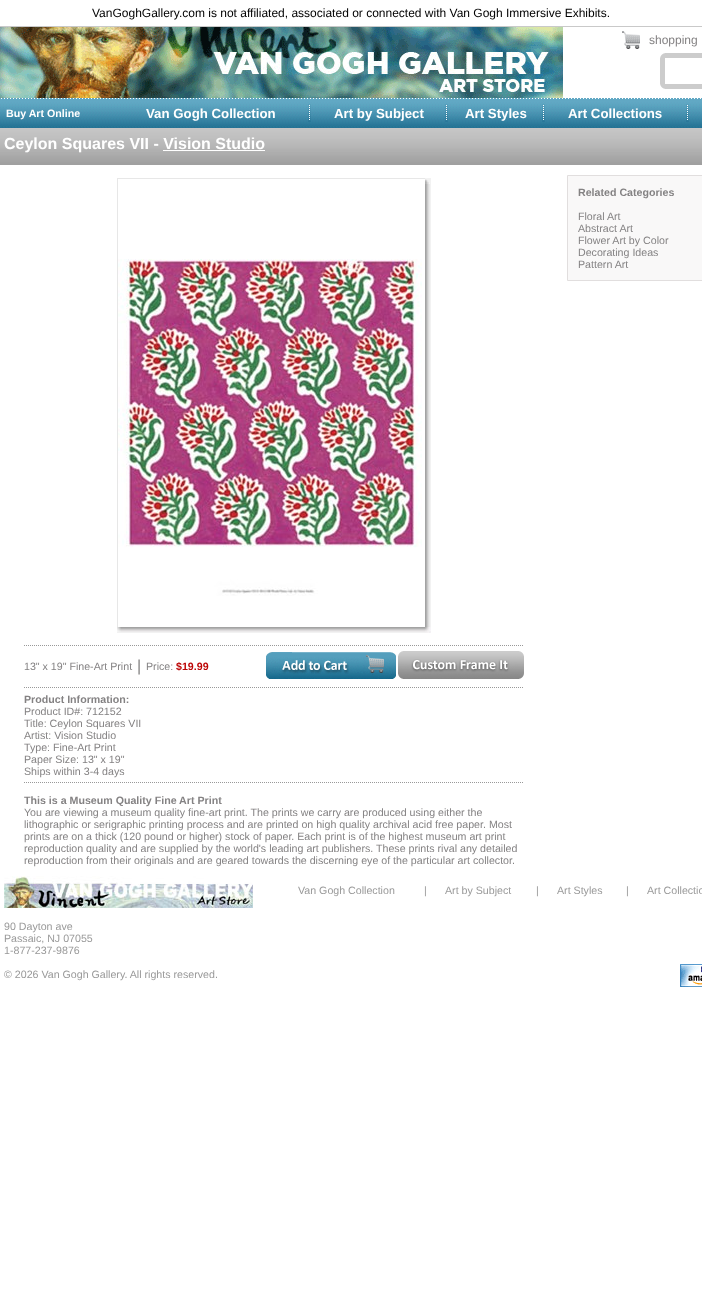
(async () => {
const canvas = document.querySelector("canvas")
canvas.width = 702
canvas.height = 1303
const c = canvas.getContext("2d")
c.miterLimit = 4
c.fontKerning = "normal"
function T(s,x,y){c.fillText(s,x,y)}
function R(x,y,w,h){c.fillRect(x,y,w,h)}
async function I(src,x,y,w,h){const img=new Image();img.src=src;await img.decode();c.drawImage(img,x,y,w,h)}
let path
c.fillStyle="#fff"
R(0,0,702,1303)
c.font="12px Liberation Sans"
c.fillStyle="#000"
T("VanGoghGallery.com is not affiliated, associated or connected with Van Gogh Immersive Exhibits.",92,17)
c.fillStyle="#c9c9c9"
R(0,26,702,1)
await I("1.png",0,27,563,71)
await I("2.png",622,31,18,18)
c.fillStyle="#848283"
T("shopping",649,44)
await I("3.png",660,53,5,36)
await I("4.png",665,53,37,36)
await I("5.png",0,98,702,30)
c.font="bold 10.65px Liberation Sans"
c.fillStyle="#fff"
T("Buy Art Online",6,117)
c.font="bold 13.25px Liberation Sans"
T("Van Gogh Collection",146,118)
await I("6.png",308,104,3,18)
T("Art by Subject",334,118)
await I("6.png",445,104,3,18)
T("Art Styles",465,118)
await I("6.png",542,104,3,18)
T("Art Collections",568,118)
await I("6.png",686,104,3,18)
await I("7.png",0,128,702,37)
c.font="bold 16px Liberation Sans"
T("Ceylon Squares VII - Vision Studio",4,149)
R(163,150,102,1)
c.fillStyle="#f9f8f8"
c.beginPath()
c.rect(567.5,175.5,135,105)
c.fill()
c.strokeStyle="#e1dede"
c.stroke()
c.font="bold 10.65px Liberation Sans"
c.fillStyle="#848283"
T("Related Categories",578,196)
c.font="10.65px Liberation Sans"
T("Floral Art",578,220)
T("Abstract Art",578,232)
T("Flower Art by Color",578,244)
T("Decorating Ideas",578,256)
T("Pattern Art",578,268)
c.fillStyle="#e7e7e7"
R(117,178,308,1)
R(117,178,1,449)
await I("8.png",118,259,304,337)
await I("9.png",425,178,6,449)
await I("10.png",425,178,5,6)
await I("11.png",117,627,308,6)
await I("12.png",117,627,4,5)
await I("13.png",425,627,6,6)
path = new Path2D("M24 645.5h500")
c.strokeStyle="#999"
c.setLineDash([1,1])
c.stroke(path)
c.fillStyle="#848283"
T("13\" x 19\" Fine-Art Print",24,670)
c.font="16px Liberation Sans"
T("|",137,671)
c.font="10.65px Liberation Sans"
T("Price:",146,670)
c.font="bold 10.65px Liberation Sans"
c.fillStyle="#bc0404"
T("$19.99",176,670)
await I("14.png",266,652,130,27)
await I("15.png",398,651,126,28)
path = new Path2D("M24 687.5h500")
c.stroke(path)
c.fillStyle="#848283"
T("Product Information:",24,703)
c.font="10.65px Liberation Sans"
T("Product ID#: 712152",24,715)
T("Title: Ceylon Squares VII",24,727)
T("Artist: Vision Studio",24,739)
T("Type: Fine-Art Print",24,751)
T("Paper Size: 13\" x 19\"",24,763)
T("Ships within 3-4 days",24,775)
path = new Path2D("M24 782.5h500")
c.stroke(path)
c.font="bold 10.65px Liberation Sans"
T("This is a Museum Quality Fine Art Print",24,804)
c.font="10.65px Liberation Sans"
T("You are viewing a museum quality fine-art print. The prints we carry are produced using either the",24,816)
T("lithographic or serigraphic printing process and are printed on high quality archival acid free paper. Most",24,828)
T("prints are on a thick (120 pound or higher) stock of paper. Each print is of the highest museum art print",24,840)
T("reproduction quality and are supplied by the world's leading art publishers. These prints rival any detailed",24,852)
T("reproduction from their originals and are geared towards the discerning eye of the particular art collector.",24,864)
c.fillStyle="#999"
T("Van Gogh Collection",298,894)
T("|",424,894)
T("Art by Subject",445,894)
T("|",536,894)
T("Art Styles",557,894)
T("|",626,894)
T("Art Collectio",647,894)
await I("16.png",680,964,22,23)
await I("17.png",4,876,249,32)
T("90 Dayton ave",4,930)
T("Passaic, NJ 07055",4,942)
T("1-877-237-9876",4,954)
T("© 2026 Van Gogh Gallery. All rights reserved.",4,978)
})()
